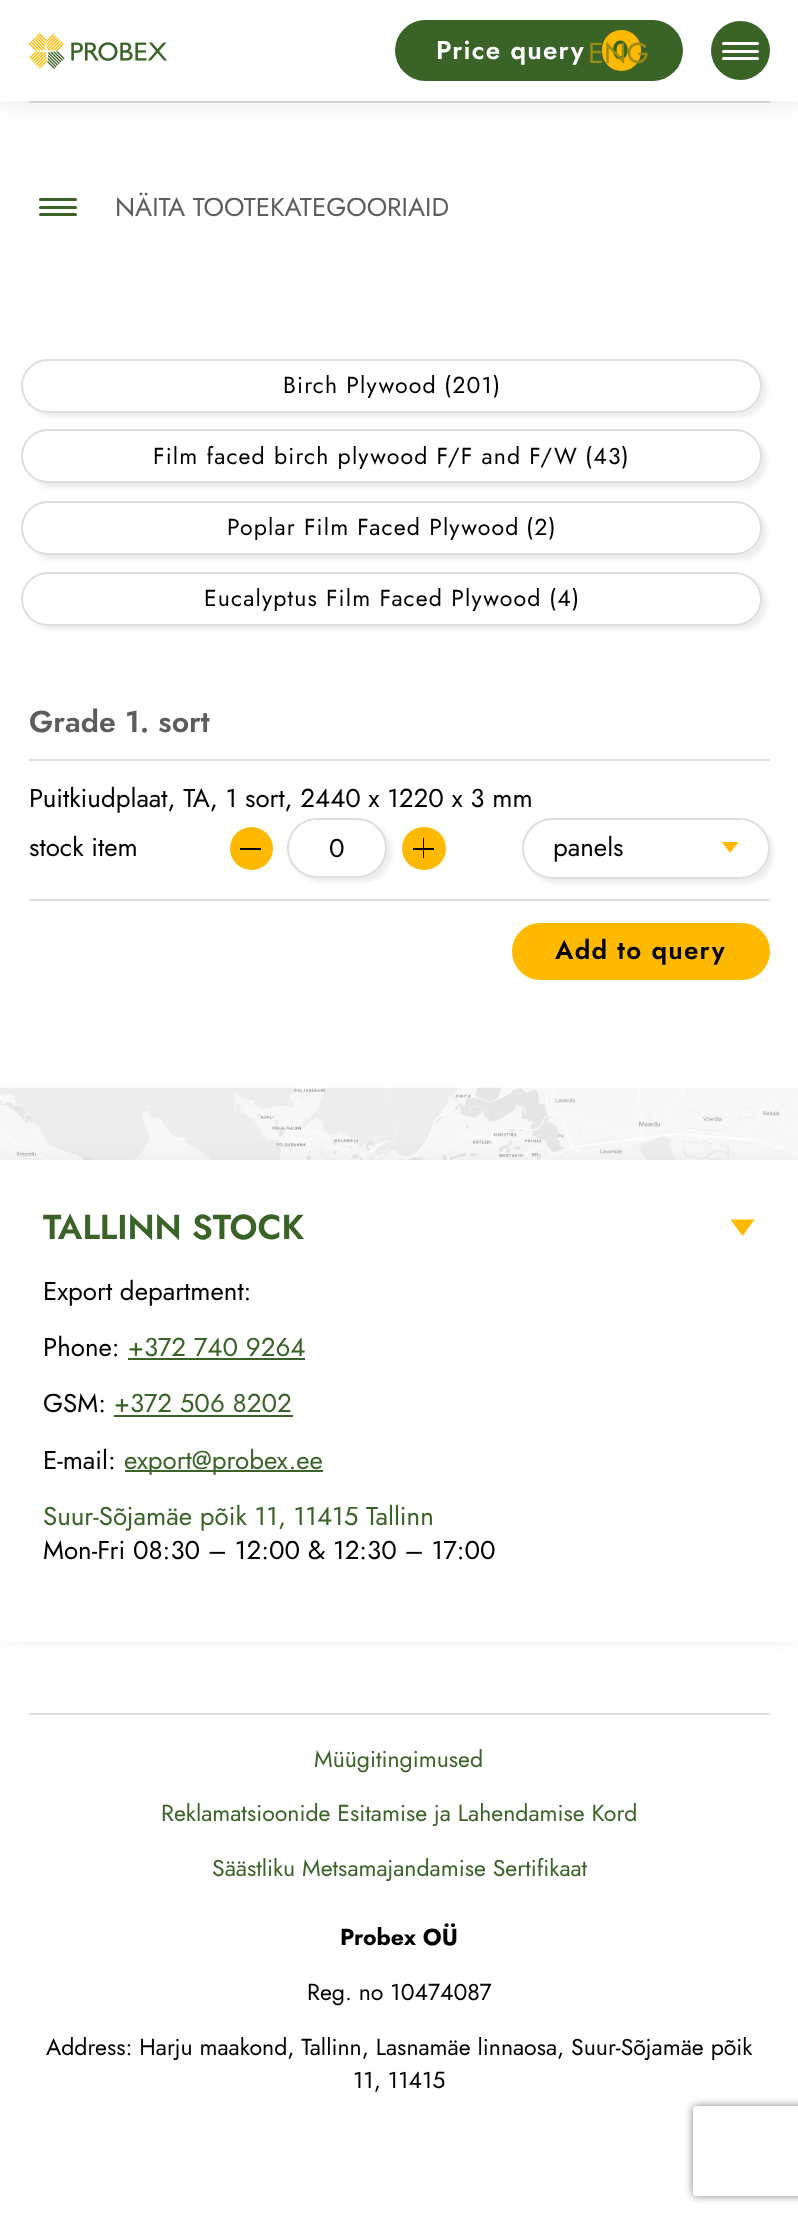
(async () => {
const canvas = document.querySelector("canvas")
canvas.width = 798
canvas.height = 2217
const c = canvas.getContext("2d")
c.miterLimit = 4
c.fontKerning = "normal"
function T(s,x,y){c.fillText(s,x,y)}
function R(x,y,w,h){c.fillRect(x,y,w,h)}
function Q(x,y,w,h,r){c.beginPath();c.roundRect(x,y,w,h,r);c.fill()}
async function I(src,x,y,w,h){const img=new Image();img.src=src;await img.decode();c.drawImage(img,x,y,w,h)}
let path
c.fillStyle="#fff"
R(0,0,798,2217)
c.fillStyle="#dedede"
R(29,101,741,2)
c.fillStyle="#0000001a"
c.filter="blur(14.5px)"
c.beginPath()
c.rect(0,0,798,101)
c.fill()
c.filter="none"
c.fillStyle="#fff"
R(0,0,798,101)
await I("1.png",29,33,138,36)
c.fillStyle="#396327"
Q(395,20,288,61,30.5)
c.letterSpacing="1.25px"
c.font="600 25.9px Jost"
c.fillStyle="#fff"
T("Price query",436,59)
c.fillStyle="#ffb900"
Q(602,30,39,41,19.5)
c.fillStyle="#396327"
T("0",612,59)
c.letterSpacing="0px"
c.font="29px Jost"
c.fillStyle="#988c14"
T("ENG",588,63)
c.save()
c.beginPath()
c.rect(666,47,17,12)
c.clip()
c.fillStyle="#396327"
path = new Path2D("M674.5 58l-8.5-11.5h17z")
c.fill(path)
c.restore()
c.fillStyle="#396327"
c.beginPath()
c.arc(740.5,50.5,29.5,0,7)
c.fill()
c.fillStyle="#fff"
Q(722,42,37,3,1.5)
Q(722,50,37,3,1.5)
Q(722,57,37,3,1.5)
c.fillStyle="#396327"
Q(39,198,38,3,1.5)
Q(39,206,38,3,1.5)
Q(39,213,38,3,1.5)
c.font="25.9px Jost"
c.fillStyle="#5d5d5d"
T("NÄITA TOOTEKATEGOORIAID",115,216)
c.save()
path = new Path2D("M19 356h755v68h-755zm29 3h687c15 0 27 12 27 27c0 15-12 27-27 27h-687c-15 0-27-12-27-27c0-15 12-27 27-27z")
c.clip(path,"evenodd")
c.fillStyle="#00000012"
c.filter="blur(2px)"
c.beginPath()
c.roundRect(26,363,741,54,27)
c.fill()
c.filter="none"
c.restore()
c.beginPath()
c.roundRect(22,360,739,52,26)
c.strokeStyle="#dedede"
c.lineWidth=2
c.stroke()
c.letterSpacing="1.15px"
c.font="23.05px Jost"
c.fillStyle="#000"
T("Birch Plywood",283,393)
T("(201)",444,393)
c.save()
path = new Path2D("M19 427h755v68h-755zm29 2h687c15 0 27 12 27 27c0 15-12 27-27 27h-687c-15 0-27-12-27-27c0-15 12-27 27-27z")
c.clip(path,"evenodd")
c.fillStyle="#00000012"
c.filter="blur(2px)"
c.beginPath()
c.roundRect(26,434,741,54,27)
c.fill()
c.filter="none"
c.restore()
c.beginPath()
c.roundRect(22,430,739,52,26)
c.stroke()
T("Film faced birch plywood F/F and F/W",153,464)
T("(43)",585,464)
c.save()
path = new Path2D("M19 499h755v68h-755zm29 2h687c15 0 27 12 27 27c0 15-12 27-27 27h-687c-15 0-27-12-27-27c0-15 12-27 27-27z")
c.clip(path,"evenodd")
c.fillStyle="#00000012"
c.filter="blur(2px)"
c.beginPath()
c.roundRect(26,506,741,54,27)
c.fill()
c.filter="none"
c.restore()
c.beginPath()
c.roundRect(22,502,739,52,26)
c.stroke()
T("Poplar Film Faced Plywood",227,535)
T("(2)",526,535)
c.save()
path = new Path2D("M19 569h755v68h-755zm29 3h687c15 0 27 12 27 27c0 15-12 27-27 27h-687c-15 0-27-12-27-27c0-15 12-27 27-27z")
c.clip(path,"evenodd")
c.fillStyle="#00000012"
c.filter="blur(2px)"
c.beginPath()
c.roundRect(26,576,741,54,27)
c.fill()
c.filter="none"
c.restore()
c.beginPath()
c.roundRect(22,573,739,52,26)
c.stroke()
T("Eucalyptus Film Faced Plywood",204,606)
T("(4)",549,606)
c.letterSpacing="0px"
c.font="600 30.25px Jost"
c.fillStyle="#5d5d5d"
T("Grade 1. sort",29,732)
c.fillStyle="#dedede"
R(29,759,741,2)
R(29,899,741,2)
c.font="25.9px Jost"
c.fillStyle="#000"
T("Puitkiudplaat, ТА, 1 sort, 2440 x 1220 x 3 mm",29,807)
T("stock item",29,856)
c.fillStyle="#ffb900"
c.beginPath()
c.arc(251.5,848.5,21.5,0,7)
c.fill()
c.fillStyle="#000"
R(240,848,21,2)
c.fillStyle="#00000012"
c.filter="blur(2px)"
c.beginPath()
c.roundRect(291,822,101,60,30)
c.fill()
c.filter="none"
c.fillStyle="#fff"
c.beginPath()
c.roundRect(288,819,98,58,29)
c.fill()
c.stroke()
c.fillStyle="#000"
T("0",329,857)
c.fillStyle="#ffb900"
Q(402,827,44,43,21.5)
c.fillStyle="#000"
R(413,848,21,2)
R(423,838,1,20)
c.fillStyle="#00000012"
c.filter="blur(2px)"
c.beginPath()
c.roundRect(527,822,247,62,31)
c.fill()
c.filter="none"
c.fillStyle="#fff"
Q(522,818,248,61,30.5)
c.save()
c.beginPath()
c.rect(722,842,18,12)
c.clip()
c.fillStyle="#ffb900"
path = new Path2D("M730 853l-8.5-11.5h17.5z")
c.fill(path)
c.restore()
c.beginPath()
c.roundRect(523,819,246,59,29.5)
c.stroke()
c.fillStyle="#000"
T("panels",553,856)
c.fillStyle="#ffb900"
c.beginPath()
c.roundRect(513,924,256,55,27.5)
c.fill()
c.strokeStyle="#ffb900"
c.stroke()
c.letterSpacing="1.25px"
c.font="600 25.9px Jost"
c.fillStyle="#000"
T("Add to query",555,959)
await I("2.png",0,1087,798,73)
c.fillStyle="#0000000d"
c.filter="blur(11px)"
c.beginPath()
c.rect(0,1160,798,481)
c.fill()
c.filter="none"
c.fillStyle="#fff"
R(0,1160,798,481)
c.letterSpacing="0px"
c.font="600 34.5px Jost"
c.fillStyle="#396327"
T("TALLINN STOCK",43,1239)
c.fillStyle="#ffb900"
path = new Path2D("M730.5 1219.5h24l-12 16.5z")
c.fill(path)
c.font="25.9px Jost"
c.fillStyle="#000"
T("Export department:",43,1300)
T("Phone:",43,1356)
c.fillStyle="#396327"
T("+372 740 9264",128,1356)
R(128,1358,177,2)
c.fillStyle="#000"
T("GSM:",43,1412)
c.fillStyle="#396327"
T("+372 506 8202",114,1412)
R(114,1415,179,2)
c.fillStyle="#000"
T("E-mail:",43,1469)
c.fillStyle="#396327"
R(125,1470,198,2)
T("export@probex.ee",124,1469)
T("Suur-Sõjamäe põik 11, 11415 Tallinn",43,1525)
c.fillStyle="#000"
T("Mon-Fri 08:30 – 12:00 & 12:30 – 17:00",43,1559)
c.fillStyle="#dedede"
R(29,1713,741,2)
c.font="23.05px Jost"
c.fillStyle="#396327"
T("Müügitingimused",314,1767)
T("Reklamatsioonide Esitamise ja Lahendamise Kord",161,1821)
T("Säästliku Metsamajandamise Sertifikaat",212,1876)
c.font="bold 23.05px Jost"
c.fillStyle="#000"
T("Probex OÜ",340,1945)
c.font="23.05px Jost"
T("Reg. no 10474087",307,2000)
T("Address: Harju maakond, Tallinn, Lasnamäe linnaosa, Suur-Sõjamäe põik",46,2055)
T("11, 11415",353,2088)
c.save()
path = new Path2D("M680 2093h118v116h-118zm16 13h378c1.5 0 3 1.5 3 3v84c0 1.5-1.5 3-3 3h-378c-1.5 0-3-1.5-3-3v-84c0-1.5 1.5-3 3-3z")
c.clip(path,"evenodd")
c.fillStyle="#808080"
c.filter="blur(4px)"
c.beginPath()
c.roundRect(693,2106,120,90,3)
c.fill()
c.filter="none"
c.restore()
})()
